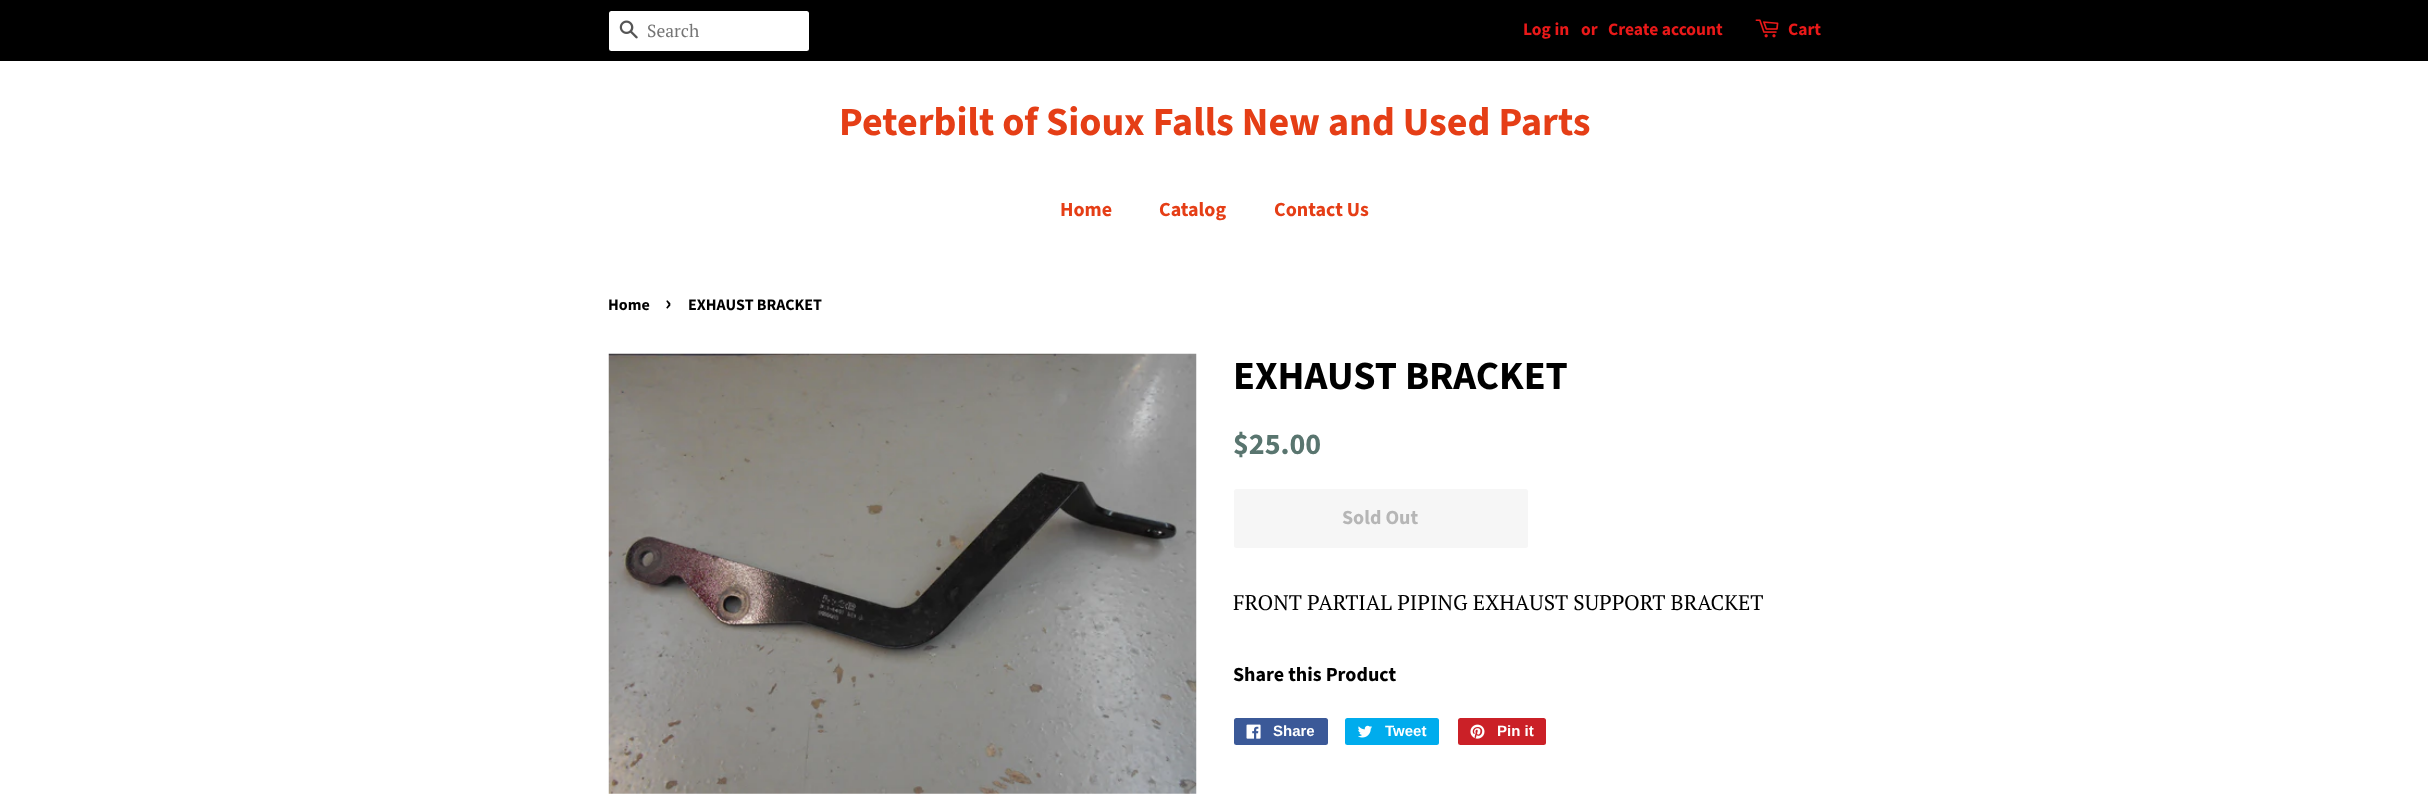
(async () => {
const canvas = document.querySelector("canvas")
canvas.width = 2428
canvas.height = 810
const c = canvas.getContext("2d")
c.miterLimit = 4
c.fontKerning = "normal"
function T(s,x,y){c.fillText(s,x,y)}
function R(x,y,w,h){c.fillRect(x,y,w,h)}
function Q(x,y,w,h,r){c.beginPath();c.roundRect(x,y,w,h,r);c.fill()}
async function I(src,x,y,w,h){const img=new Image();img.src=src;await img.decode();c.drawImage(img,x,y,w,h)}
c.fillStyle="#fff"
R(0,0,2428,810)
c.fillStyle="#000"
R(0,0,2428,61)
c.fillStyle="#fff"
Q(609,11,200,40,2.5)
await I("1.png",619,20,19,19)
c.font="17.5px PT Serif"
c.fillStyle="#757575"
T("Search",647,37)
c.font="bold 17.5px Source Sans Pro"
c.fillStyle="#ea1919"
T("Log in",1523,35)
T("or",1581,35)
T("Create account",1608,35)
await I("2.png",1755,19,24,19)
T("Cart",1788,35)
c.font="bold 40px Source Sans Pro"
c.fillStyle="#e53e16"
T("Peterbilt of Sioux Falls New and Used Parts",839,135)
c.font="bold 20px Source Sans Pro"
T("Home",1060,216)
T("Catalog",1159,216)
T("Contact Us",1274,216)
c.font="bold 16px Source Sans Pro"
c.fillStyle="#000"
T("Home",608,310)
c.font="bold 22px Source Sans Pro"
T("›",665,310)
c.font="bold 16px Source Sans Pro"
T("EXHAUST BRACKET",688,310)
await I("3.png",608,353,589,441)
c.font="bold 40px Source Sans Pro"
T("EXHAUST BRACKET",1233,389)
c.font="bold 30px Source Sans Pro"
c.fillStyle="#59756f"
T("$25.00",1233,454)
c.fillStyle="#f6f6f6"
Q(1234,489,294,59,2.5)
c.font="bold 20px Source Sans Pro"
c.fillStyle="#b6b6b6"
T("Sold Out",1342,524)
c.font="21.25px PT Serif"
c.fillStyle="#000"
T("FRONT PARTIAL PIPING EXHAUST SUPPORT BRACKET",1233,610)
c.font="bold 20px Source Sans Pro"
T("Share this Product",1233,681)
c.fillStyle="#3b5998"
Q(1234,718,94,27,2.5)
await I("4.png",1246,724,15,15)
c.font="bold 15px Liberation Sans"
c.fillStyle="#fff"
T("Share",1273,736)
c.fillStyle="#00aced"
Q(1345,718,94,27,2.5)
await I("5.png",1358,725,14,13)
c.fillStyle="#fff"
T("Tweet",1385,736)
c.fillStyle="#cb2027"
Q(1458,718,88,27,2.5)
await I("6.png",1470,724,15,15)
c.fillStyle="#fff"
T("Pin it",1497,736)
})()
